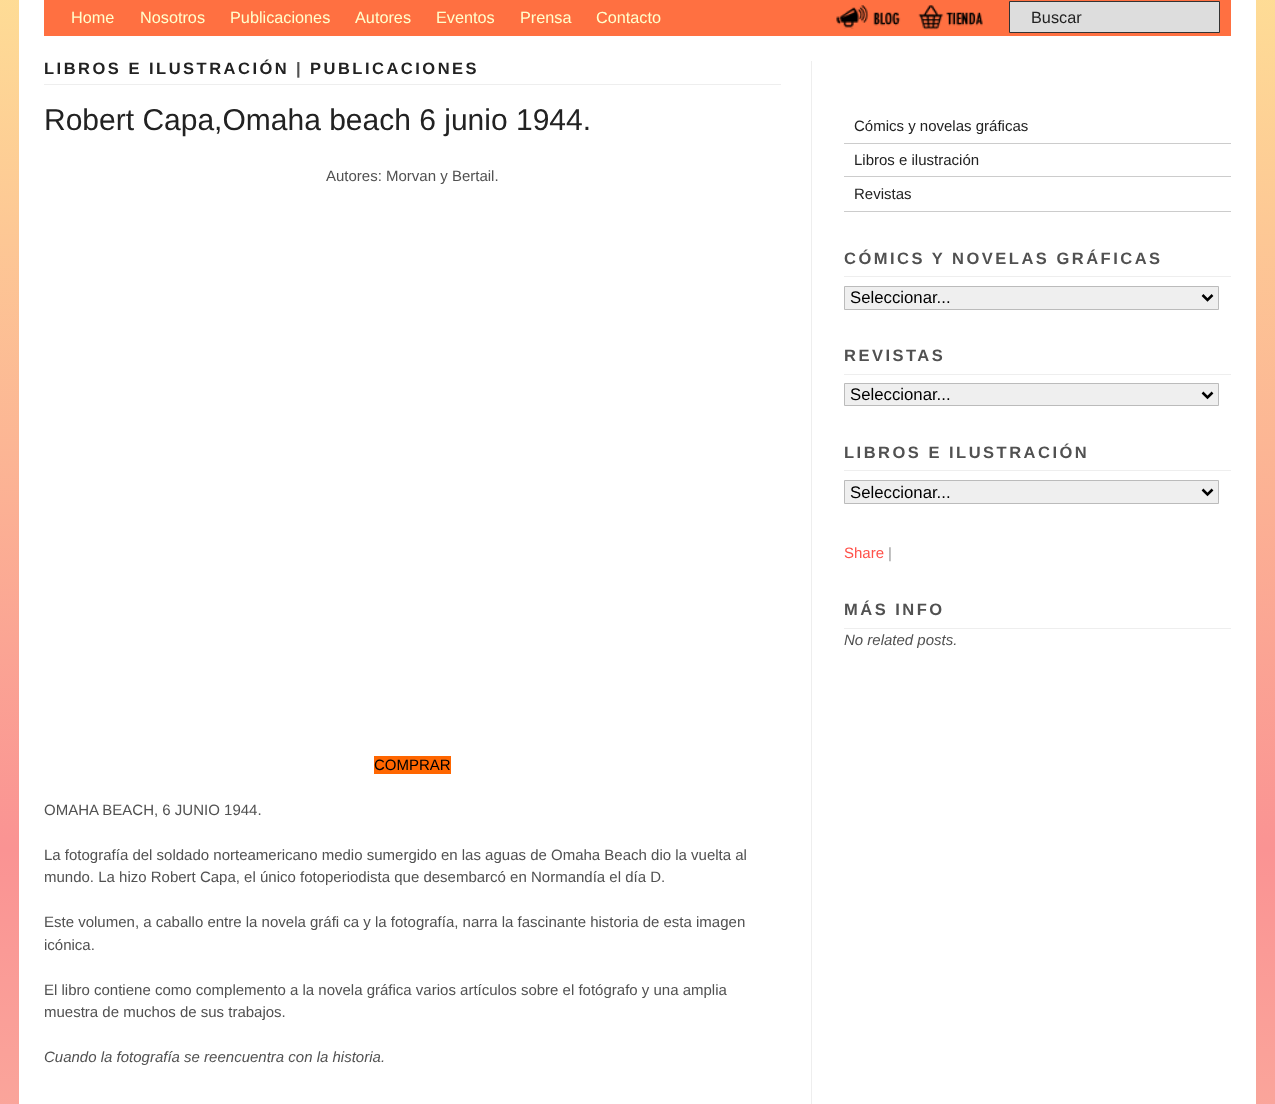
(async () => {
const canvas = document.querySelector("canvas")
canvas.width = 1275
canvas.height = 1104
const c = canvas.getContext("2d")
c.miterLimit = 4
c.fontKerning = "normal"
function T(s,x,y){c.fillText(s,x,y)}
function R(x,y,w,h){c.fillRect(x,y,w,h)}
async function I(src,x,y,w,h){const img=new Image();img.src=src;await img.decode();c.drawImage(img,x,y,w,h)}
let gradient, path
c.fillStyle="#fff"
R(0,0,1275,1104)
gradient = c.createLinearGradient(0,-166,0,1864)
gradient.addColorStop(0,"#ffea96")
gradient.addColorStop(.5,"#fa9393")
gradient.addColorStop(1,"#fad9b1")
c.fillStyle = gradient
R(0,0,1275,1104)
c.fillStyle="#fff"
R(19,0,1237,1104)
c.fillStyle="#ff7041"
R(44,0,1187,36)
c.font="16.25px Liberation Sans"
c.fillStyle="#ffc"
T("Home",71,23)
T("Nosotros",140,23)
T("Publicaciones",230,23)
T("Autores",355,23)
T("Eventos",436,23)
T("Prensa",520,23)
T("Contacto",596,23)
await I("1.png",836,5,65,24)
await I("2.png",918,5,65,25)
c.fillStyle="#ddd"
c.beginPath()
c.rect(1009.5,1.5,210,31)
c.fill()
c.strokeStyle="#333"
c.stroke()
c.fillStyle="#222"
T("Buscar",1031,23)
c.fillStyle="#eee"
R(811,61,1,1043)
R(44,84,737,1)
c.letterSpacing="2.5px"
c.font="bold 16.5px Liberation Sans"
c.fillStyle="#222"
T("LIBROS E ILUSTRACIÓN",44,74)
c.fillStyle="#515151"
T("|",296,74)
c.fillStyle="#222"
T("PUBLICACIONES",310,74)
c.letterSpacing="0px"
c.font="30px Liberation Sans"
T("Robert Capa,Omaha beach 6 junio 1944.",44,130)
c.font="15px Liberation Sans"
c.fillStyle="#515151"
T("Autores: Morvan y Bertail.",326,181)
c.fillStyle="#f60"
R(374,756,77,18)
c.fillStyle="#000"
T("COMPRAR",374,770)
c.fillStyle="#515151"
T("OMAHA BEACH, 6 JUNIO 1944.",44,815)
T("La fotografía del soldado norteamericano medio sumergido en las aguas de Omaha Beach dio la vuelta al",44,860)
T("mundo. La hizo Robert Capa, el único fotoperiodista que desembarcó en Normandía el día D.",44,882)
T("Este volumen, a caballo entre la novela gráfi ca y la fotografía, narra la fascinante historia de esta imagen",44,927)
T("icónica.",44,950)
T("El libro contiene como complemento a la novela gráfica varios artículos sobre el fotógrafo y una amplia",44,995)
T("muestra de muchos de sus trabajos.",44,1017)
c.font="italic 15px Liberation Sans"
T("Cuando la fotografía se reencuentra con la historia.",44,1062)
c.fillStyle="#ccc"
R(844,143,387,1)
c.font="15px Liberation Sans"
c.fillStyle="#222"
T("Cómics y novelas gráficas",854,131)
c.fillStyle="#ccc"
R(844,176,387,1)
c.fillStyle="#222"
T("Libros e ilustración",854,165)
c.fillStyle="#ccc"
R(844,211,387,1)
c.fillStyle="#222"
T("Revistas",854,199)
c.fillStyle="#eee"
R(844,276,387,1)
c.letterSpacing="2.5px"
c.font="bold 16.5px Liberation Sans"
c.fillStyle="#515151"
T("CÓMICS Y NOVELAS GRÁFICAS",844,264)
c.fillStyle="#efefef"
c.beginPath()
c.rect(844.5,286.5,374,23)
c.fill()
c.strokeStyle="#bbb"
c.stroke()
path = new Path2D("M1202.5 295l5 5l5-5")
c.strokeStyle="#000"
c.lineWidth=2.5
c.stroke(path)
c.letterSpacing="0px"
c.font="16.75px Liberation Sans"
c.fillStyle="#000"
T("Seleccionar...",850,303)
c.fillStyle="#eee"
R(844,374,387,1)
c.letterSpacing="2.5px"
c.font="bold 16.5px Liberation Sans"
c.fillStyle="#515151"
T("REVISTAS",844,361)
c.fillStyle="#efefef"
c.beginPath()
c.rect(844.5,383.5,374,22)
c.fill()
c.strokeStyle="#bbb"
c.lineWidth=1
c.stroke()
path = new Path2D("M1202.5 392.5l5 5l5-5")
c.strokeStyle="#000"
c.lineWidth=2.5
c.stroke(path)
c.letterSpacing="0px"
c.font="16.75px Liberation Sans"
c.fillStyle="#000"
T("Seleccionar...",850,400)
c.fillStyle="#eee"
R(844,470,387,1)
c.letterSpacing="2.5px"
c.font="bold 16.5px Liberation Sans"
c.fillStyle="#515151"
T("LIBROS E ILUSTRACIÓN",844,458)
c.fillStyle="#efefef"
c.beginPath()
c.rect(844.5,480.5,374,23)
c.fill()
c.strokeStyle="#bbb"
c.lineWidth=1
c.stroke()
path = new Path2D("M1202.5 489.5l5 5l5-5")
c.strokeStyle="#000"
c.lineWidth=2.5
c.stroke(path)
c.letterSpacing="0px"
c.font="16.75px Liberation Sans"
c.fillStyle="#000"
T("Seleccionar...",850,498)
c.font="15px Liberation Sans"
c.fillStyle="#ff5149"
T("Share",844,558)
c.fillStyle="#999"
T("|",888,558)
c.fillStyle="#eee"
R(844,628,387,1)
c.letterSpacing="2.5px"
c.font="bold 16.5px Liberation Sans"
c.fillStyle="#515151"
T("MÁS INFO",844,615)
c.letterSpacing="0px"
c.font="italic 15px Liberation Sans"
T("No related posts.",844,645)
})()
